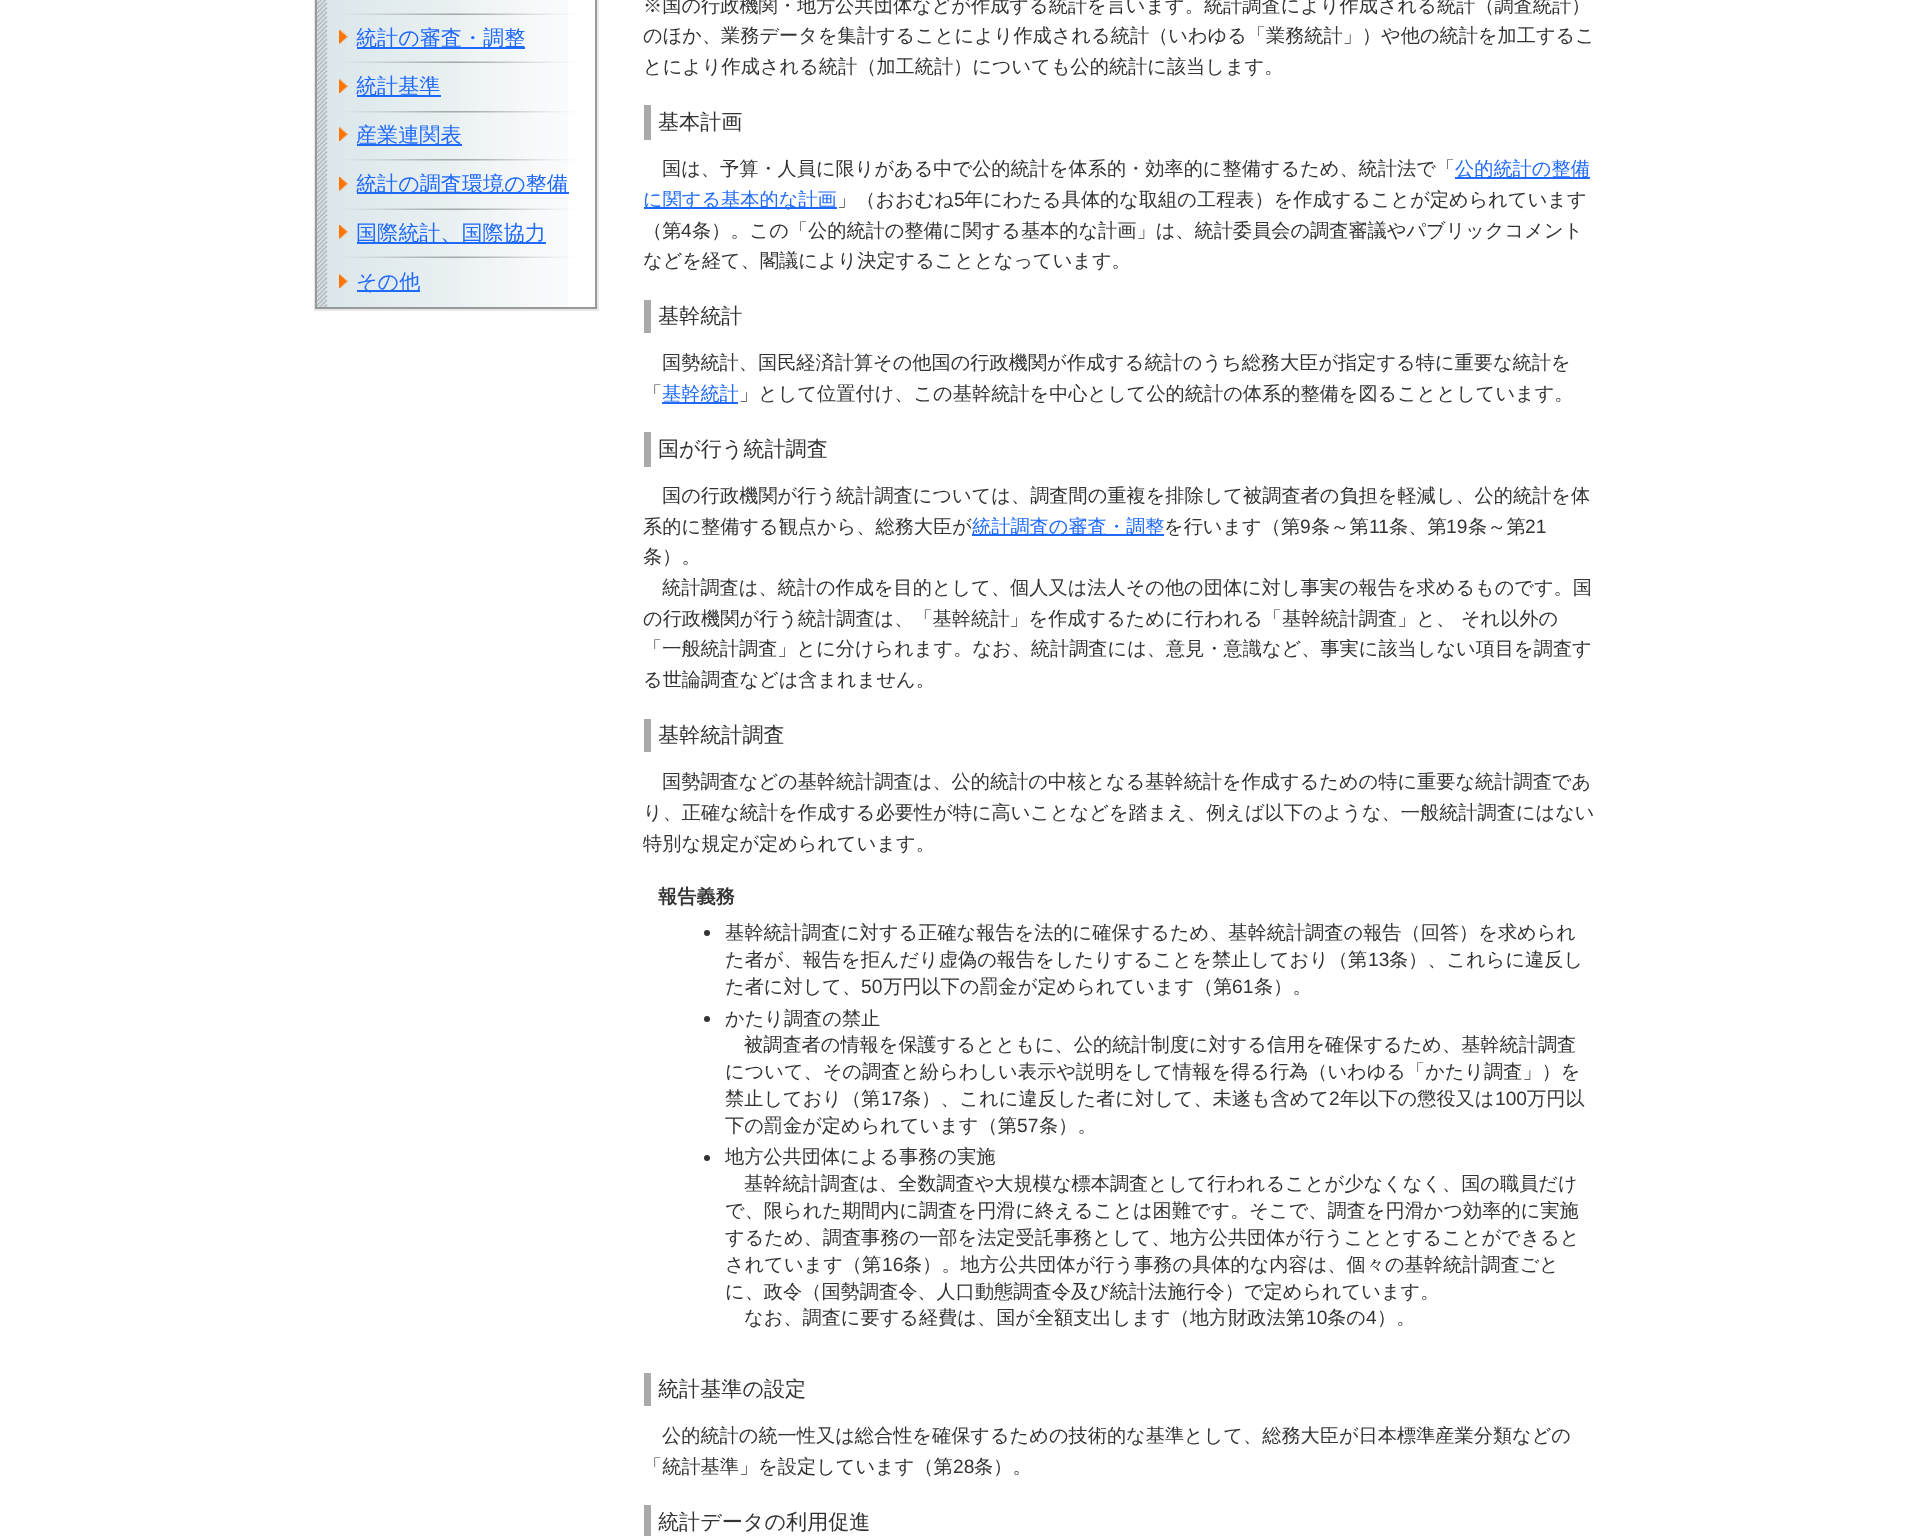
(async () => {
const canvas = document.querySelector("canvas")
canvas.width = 1930
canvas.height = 1536
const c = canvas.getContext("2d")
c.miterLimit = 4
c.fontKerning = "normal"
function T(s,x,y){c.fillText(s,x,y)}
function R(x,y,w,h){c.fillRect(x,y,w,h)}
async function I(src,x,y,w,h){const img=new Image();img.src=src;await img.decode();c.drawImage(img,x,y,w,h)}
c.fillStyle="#fff"
R(0,0,1930,1536)
c.strokeStyle="#e8e8e8"
c.lineWidth=2
c.strokeRect(315,-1,283,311)
await I("1.png",317,0,251,307)
c.strokeStyle="#999"
c.strokeRect(316,-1,280,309)
await I("2.png",346,13,231,2)
await I("3.png",339,30,9,14)
c.fillStyle="#206afb"
R(357,47,168,2)
c.font="500 21.1px WenQuanYi Zen Hei"
T("統計の審査・調整",356,45)
await I("2.png",346,61,231,2)
await I("4.png",339,79,9,14)
R(357,95,84,2)
T("統計基準",356,93)
await I("5.png",346,111,231,2)
await I("4.png",339,127,9,14)
R(357,144,105,2)
T("産業連関表",356,142)
await I("5.png",346,159,231,2)
await I("3.png",339,177,9,14)
R(357,192,212,2)
T("統計の調査環境の整備",356,191)
await I("2.png",346,208,231,2)
await I("3.png",339,225,9,14)
R(357,242,189,2)
T("国際統計、国際協力",356,240)
await I("2.png",346,256,231,2)
await I("4.png",339,274,9,14)
R(357,290,63,2)
T("その他",356,289)
c.font="500 19.2px WenQuanYi Zen Hei"
c.fillStyle="#333"
T("※国の行政機関・地方公共団体などが作成する統計を言います。統計調査により作成される統計（調査統計）",643,12)
T("のほか、業務データを集計することにより作成される統計（いわゆる「業務統計」）や他の統計を加工するこ",643,42)
T("とにより作成される統計（加工統計）についても公的統計に該当します。",643,73)
c.fillStyle="#aaa"
R(644,105,7,35)
c.font="500 21.1px WenQuanYi Zen Hei"
c.fillStyle="#333"
T("基本計画",658,129)
c.font="500 19.2px WenQuanYi Zen Hei"
T("国は、予算・人員に限りがある中で公的統計を体系的・効率的に整備するため、統計法で「",662,175)
c.fillStyle="#206afb"
R(1455,177,135,2)
T("公的統計の整備",1455,175)
R(644,207,193,2)
T("に関する基本的な計画",643,206)
c.fillStyle="#333"
T("」（おおむね",837,206)
c.font="19.2px Liberation Sans"
T("5",954,206)
c.font="500 19.2px WenQuanYi Zen Hei"
T("年にわたる具体的な取組の工程表）を作成することが定められています",964,206)
T("（第",643,237)
c.font="19.2px Liberation Sans"
T("4",681,237)
c.font="500 19.2px WenQuanYi Zen Hei"
T("条）。この「公的統計の整備に関する基本的な計画」は、統計委員会の調査審議やパブリックコメント",692,237)
T("などを経て、閣議により決定することとなっています。",643,267)
c.fillStyle="#aaa"
R(644,300,7,33)
c.font="500 21.1px WenQuanYi Zen Hei"
c.fillStyle="#333"
T("基幹統計",658,323)
c.font="500 19.2px WenQuanYi Zen Hei"
T("国勢統計、国民経済計算その他国の行政機関が作成する統計のうち総務大臣が指定する特に重要な統計を",662,369)
T("「",643,400)
c.fillStyle="#206afb"
R(662,402,76,2)
T("基幹統計",662,400)
c.fillStyle="#333"
T("」として位置付け、この基幹統計を中心として公的統計の体系的整備を図ることとしています。",739,400)
c.fillStyle="#aaa"
R(644,432,7,35)
c.font="500 21.1px WenQuanYi Zen Hei"
c.fillStyle="#333"
T("国が行う統計調査",658,456)
c.font="500 19.2px WenQuanYi Zen Hei"
T("国の行政機関が行う統計調査については、調査間の重複を排除して被調査者の負担を軽減し、公的統計を体",662,502)
T("系的に整備する観点から、総務大臣が",643,533)
c.fillStyle="#206afb"
R(972,534,192,2)
T("統計調査の審査・調整",972,533)
c.fillStyle="#333"
T("を行います（第",1164,533)
c.font="19.2px Liberation Sans"
T("9",1300,533)
c.font="500 19.2px WenQuanYi Zen Hei"
T("条～第",1311,533)
c.font="19.2px Liberation Sans"
T("11",1369,533)
c.font="500 19.2px WenQuanYi Zen Hei"
T("条、第",1389,533)
c.font="19.2px Liberation Sans"
T("19",1446,533)
c.font="500 19.2px WenQuanYi Zen Hei"
T("条～第",1468,533)
c.font="19.2px Liberation Sans"
T("21",1525,533)
c.font="500 19.2px WenQuanYi Zen Hei"
T("条）。",643,563)
T("統計調査は、統計の作成を目的として、個人又は法人その他の団体に対し事実の報告を求めるものです。国",662,594)
T("の行政機関が行う統計調査は、「基幹統計」を作成するために行われる「基幹統計調査」と、 それ以外の",643,625)
T("「一般統計調査」とに分けられます。なお、統計調査には、意見・意識など、事実に該当しない項目を調査す",643,655)
T("る世論調査などは含まれません。",643,686)
c.fillStyle="#aaa"
R(644,719,7,33)
c.font="500 21.1px WenQuanYi Zen Hei"
c.fillStyle="#333"
T("基幹統計調査",658,742)
c.font="500 19.2px WenQuanYi Zen Hei"
T("国勢調査などの基幹統計調査は、公的統計の中核となる基幹統計を作成するための特に重要な統計調査であ",662,788)
T("り、正確な統計を作成する必要性が特に高いことなどを踏まえ、例えば以下のような、一般統計調査にはない",643,819)
T("特別な規定が定められています。",643,850)
c.font="bold 19.2px WenQuanYi Zen Hei"
T("報告義務",658,903)
c.beginPath()
c.arc(707,933,3,0,7)
c.fill()
c.font="500 19.2px WenQuanYi Zen Hei"
T("基幹統計調査に対する正確な報告を法的に確保するため、基幹統計調査の報告（回答）を求められ",725,939)
T("た者が、報告を拒んだり虚偽の報告をしたりすることを禁止しており（第",725,966)
c.font="19.2px Liberation Sans"
T("13",1368,966)
c.font="500 19.2px WenQuanYi Zen Hei"
T("条）、これらに違反し",1389,966)
T("た者に対して、",725,993)
c.font="19.2px Liberation Sans"
T("50",861,993)
c.font="500 19.2px WenQuanYi Zen Hei"
T("万円以下の罰金が定められています（第",883,993)
c.font="19.2px Liberation Sans"
T("61",1232,993)
c.font="500 19.2px WenQuanYi Zen Hei"
T("条）。",1254,993)
c.beginPath()
c.arc(707,1019,3,0,7)
c.fill()
T("かたり調査の禁止",725,1025)
T("被調査者の情報を保護するとともに、公的統計制度に対する信用を確保するため、基幹統計調査",744,1051)
T("について、その調査と紛らわしい表示や説明をして情報を得る行為（いわゆる「かたり調査」）を",725,1078)
T("禁止しており（第",725,1105)
c.font="19.2px Liberation Sans"
T("17",881,1105)
c.font="500 19.2px WenQuanYi Zen Hei"
T("条）、これに違反した者に対して、未遂も含めて",902,1105)
c.font="19.2px Liberation Sans"
T("2",1329,1105)
c.font="500 19.2px WenQuanYi Zen Hei"
T("年以下の懲役又は",1340,1105)
c.font="19.2px Liberation Sans"
T("100",1495,1105)
c.font="500 19.2px WenQuanYi Zen Hei"
T("万円以",1527,1105)
T("下の罰金が定められています（第",725,1132)
c.font="19.2px Liberation Sans"
T("57",1017,1132)
c.font="500 19.2px WenQuanYi Zen Hei"
T("条）。",1039,1132)
c.beginPath()
c.arc(707,1158,3,0,7)
c.fill()
T("地方公共団体による事務の実施",725,1163)
T("基幹統計調査は、全数調査や大規模な標本調査として行われることが少なくなく、国の職員だけ",744,1190)
T("で、限られた期間内に調査を円滑に終えることは困難です。そこで、調査を円滑かつ効率的に実施",725,1217)
T("するため、調査事務の一部を法定受託事務として、地方公共団体が行うこととすることができると",725,1244)
T("されています（第",725,1271)
c.font="19.2px Liberation Sans"
T("16",882,1271)
c.font="500 19.2px WenQuanYi Zen Hei"
T("条）。地方公共団体が行う事務の具体的な内容は、個々の基幹統計調査ごと",903,1271)
T("に、政令（国勢調査令、人口動態調査令及び統計法施行令）で定められています。",725,1298)
T("なお、調査に要する経費は、国が全額支出します（地方財政法第",744,1324)
c.font="19.2px Liberation Sans"
T("10",1306,1324)
c.font="500 19.2px WenQuanYi Zen Hei"
T("条の",1327,1324)
c.font="19.2px Liberation Sans"
T("4",1366,1324)
c.font="500 19.2px WenQuanYi Zen Hei"
T("）。",1377,1324)
c.fillStyle="#aaa"
R(644,1373,7,33)
c.font="500 21.1px WenQuanYi Zen Hei"
c.fillStyle="#333"
T("統計基準の設定",658,1396)
c.font="500 19.2px WenQuanYi Zen Hei"
T("公的統計の統一性又は総合性を確保するための技術的な基準として、総務大臣が日本標準産業分類などの",662,1442)
T("「統計基準」を設定しています（第",643,1473)
c.font="19.2px Liberation Sans"
T("28",953,1473)
c.font="500 19.2px WenQuanYi Zen Hei"
T("条）。",974,1473)
c.fillStyle="#aaa"
R(644,1505,7,31)
c.font="500 21.1px WenQuanYi Zen Hei"
c.fillStyle="#333"
T("統計データの利用促進",658,1529)
})()
